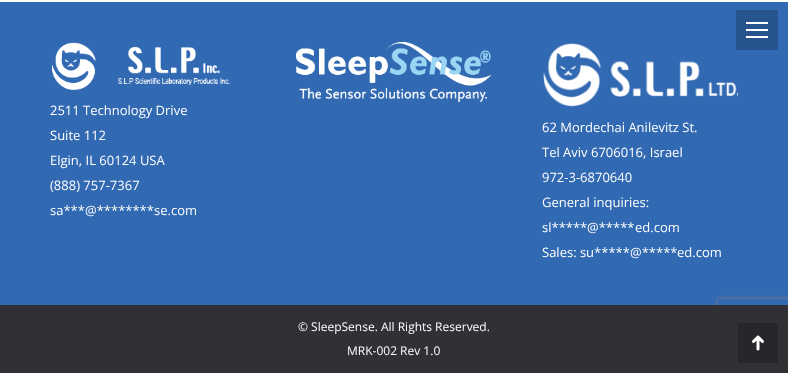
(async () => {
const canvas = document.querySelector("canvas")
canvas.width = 788
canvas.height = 373
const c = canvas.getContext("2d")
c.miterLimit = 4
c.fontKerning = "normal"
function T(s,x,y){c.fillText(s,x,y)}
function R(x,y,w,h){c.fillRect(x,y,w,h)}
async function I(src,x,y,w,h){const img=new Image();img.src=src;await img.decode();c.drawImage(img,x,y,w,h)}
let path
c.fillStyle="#fff"
R(0,0,788,373)
c.fillStyle="#3169b2"
R(0,2,788,303)
await I("3.png",543,43,195,64)
c.fillStyle="#27548e"
R(736,10,42,40)
c.fillStyle="#fff"
R(746,22,22,2)
R(746,29,22,2)
R(746,36,22,2)
await I("1.png",296,42,196,60)
await I("2.png",52,42,178,48)
c.font="13px Open Sans"
T("2511 Technology Drive",50,115)
T("Suite 112",50,140)
T("Elgin, IL 60124 USA",50,165)
T("(888) 757-7367",50,190)
T("sa***",50,215)
T("@********",85,215)
T("se.com",154,215)
T("62 Mordechai Anilevitz St.",542,132)
T("Tel Aviv 6706016, Israel",542,157)
T("972-3-6870640",542,182)
T("General inquiries:",542,207)
T("sl*****",542,232)
T("@*****",587,232)
T("ed.com",635,232)
T("Sales: su*****",542,257)
T("@*****",630,257)
T("ed.com",677,257)
c.save()
path = new Path2D("M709 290h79v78h-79zm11 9h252c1 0 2 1 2 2v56c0 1-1 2-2 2h-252c-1 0-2-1-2-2v-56c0-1 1-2 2-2z")
c.clip(path,"evenodd")
c.fillStyle="#808080"
c.filter="blur(2.5px)"
c.beginPath()
c.roundRect(718,299,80,60,2)
c.fill()
c.filter="none"
c.restore()
c.fillStyle="#303135"
R(0,305,788,68)
c.font="12px Open Sans"
c.fillStyle="#fff"
T("© SleepSense. All Rights Reserved.",298,331)
T("MRK-002 Rev 1.0",347,355)
c.fillStyle="#26272a"
R(738,323,40,40)
await I("4.png",752,335,12,16)
})()
